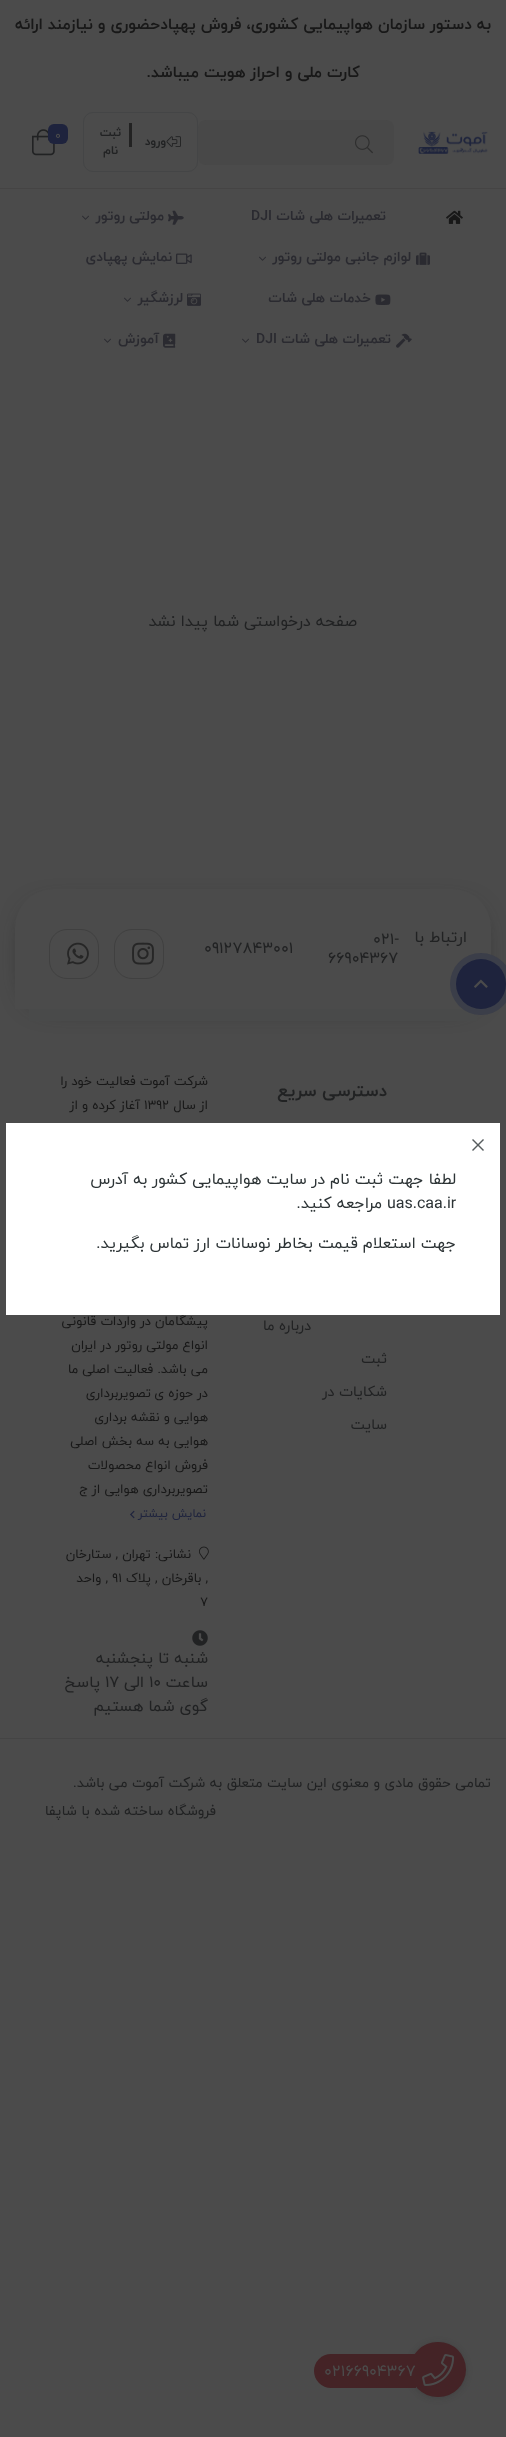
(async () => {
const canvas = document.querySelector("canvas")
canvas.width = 506
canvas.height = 2437
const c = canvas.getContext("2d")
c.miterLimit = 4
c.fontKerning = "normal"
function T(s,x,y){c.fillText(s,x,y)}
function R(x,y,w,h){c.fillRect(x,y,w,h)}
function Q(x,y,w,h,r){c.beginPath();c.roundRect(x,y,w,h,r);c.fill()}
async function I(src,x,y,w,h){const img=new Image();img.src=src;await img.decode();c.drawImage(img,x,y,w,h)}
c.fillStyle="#4b4b4b"
R(0,0,506,2437)
c.direction="rtl"
c.font="bold 16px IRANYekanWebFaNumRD"
c.fillStyle="#181818"
T("به دستور سازمان هواپیمایی کشوری، فروش پهپادحضوری و نیازمند ارائه",491,29)
T("کارت ملی و احراز هویت میباشد.",360,77)
c.fillStyle="#454444"
R(0,188,506,1)
await I("1.png",418,131,70,23)
c.fillStyle="#484848"
Q(198,120,196,45,8)
await I("2.png",355,135,18,19)
c.beginPath()
c.roundRect(83.5,112.5,114,59,9.5)
c.strokeStyle="#444546"
c.stroke()
await I("3.png",166,136,15,11)
c.font="bold 12px IRANYekanWebFaNumRD"
c.fillStyle="#212223"
T("ورود",166,145)
c.fillStyle="#222"
R(129,123,3,24)
c.fillStyle="#212223"
T("ثبت",121,136)
T("نام",118,154)
await I("4.png",32,129,23,27)
c.fillStyle="#1e233d"
Q(48,124,20,20,6)
c.direction="ltr"
c.font="12px IRANYekanWebFaNumRD"
c.fillStyle="#4b4b4b"
T("0",55,139)
await I("5.png",446,210,17,14)
c.direction="rtl"
c.font="bold 14px IRANYekanWebFaNumRD"
c.fillStyle="#2a2a30"
T("تعمیرات هلی شات",386,220)
c.direction="ltr"
T("DJI",251,220)
await I("6.png",168,210,16,15)
c.direction="rtl"
T("مولتی روتور",164,220)
await I("7.png",82,215,7,5)
await I("8.png",416,252,14,13)
T("لوازم جانبی مولتی روتور",411,261)
await I("7.png",259,256,7,5)
await I("9.png",176,253,16,11)
T("نمایش پهپادی",172,261)
await I("10.png",375,294,16,11)
T("خدمات هلی شات",371,302)
await I("11.png",187,293,14,13)
T("لرزشگیر",183,302)
await I("7.png",124,297,7,5)
await I("12.png",396,333,16,15)
T("تعمیرات هلی شات",391,343)
c.direction="ltr"
T("DJI",256,343)
await I("7.png",242,338,7,5)
await I("13.png",163,333,13,15)
c.direction="rtl"
T("آموزش",159,343)
await I("7.png",104,338,7,5)
c.font="16px IRANYekanWebFaNumRD"
c.fillStyle="#212223"
T("صفحه درخواستی شما پیدا نشد",357,626)
c.fillStyle="#181818"
c.filter="blur(14.5px)"
c.beginPath()
c.roundRect(31,912,444,88,22)
c.fill()
c.filter="none"
c.fillStyle="#4b4b4b"
c.beginPath()
c.roundRect(15,889,476,120,[38,38,0,0])
c.fill()
c.fillStyle="#494a4a"
R(29,1009,448,12)
c.fillStyle="#3b3e49"
c.filter="blur(0.5px)"
c.beginPath()
c.roundRect(450,953,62,62,31)
c.fill()
c.filter="none"
c.fillStyle="#1e233d"
c.beginPath()
c.arc(481,984,25,0,7)
c.fill()
await I("14.png",474,979,14,9)
c.fillStyle="#212223"
T("ارتباط با",467,942)
c.direction="ltr"
T("021-",373,944)
T("66904367",328,963)
T("09127843001",204,953)
c.beginPath()
c.roundRect(114.5,929.5,49,49,17.5)
c.strokeStyle="#404040"
c.stroke()
await I("15.png",132,942,22,23)
c.beginPath()
c.roundRect(49.5,929.5,49,49,17.5)
c.stroke()
await I("16.png",67,942,22,23)
c.direction="rtl"
c.font="bold 17.5px IRANYekanWebFaNumRD"
T("دسترسی سریع",387,1096)
c.font="14.5px IRANYekanWebFaNumRD"
T("درباره ما",311,1330)
T("ثبت",387,1363)
T("شکایات در",387,1396)
T("سایت",387,1429)
c.font="13px IRANYekanWebFaNumRD"
c.fillStyle="#181818"
T("شرکت آموت فعالیت خود را",208,1085)
T("از سال",208,1109)
c.direction="ltr"
T("1392",144,1109)
c.direction="rtl"
T("آغاز کرده و از",140,1109)
T("پیشگامان در واردات قانونی",208,1325)
T("انواع مولتی روتور در ایران",208,1349)
T("می باشد. فعالیت اصلی ما",208,1373)
T("در حوزه ی",208,1397)
T("تصویربرداری",151,1397)
T("هوایی و نقشه برداری",208,1421)
T("هوایی به سه بخش اصلی",208,1445)
T("فروش انواع محصولات",208,1469)
T("تصویربرداری هوایی از ج",208,1493)
c.font="12px IRANYekanWebFaNumRD"
c.fillStyle="#1e233d"
T("نمایش بیشتر",206,1517)
await I("17.png",130,1510,5,9)
await I("18.png",199,1546,10,14)
c.font="13px IRANYekanWebFaNumRD"
c.fillStyle="#181818"
T("نشانی: تهران , ستارخان",191,1558)
T(", باقرخان , پلاک",208,1582)
c.direction="ltr"
T("۹۱",112,1582)
c.direction="rtl"
T(", واحد",108,1582)
c.direction="ltr"
T("۷",200,1606)
await I("19.png",192,1630,16,16)
c.direction="rtl"
c.font="16px IRANYekanWebFaNumRD"
c.fillStyle="#212223"
T("شنبه تا پنجشنبه",208,1663)
T("ساعت",208,1687)
c.direction="ltr"
T("۱۰",149,1687)
c.direction="rtl"
T("الی",144,1687)
c.direction="ltr"
T("۱۷",105,1687)
c.direction="rtl"
T("پاسخ",100,1687)
T("گوی شما هستیم",208,1711)
c.fillStyle="#444"
R(0,1738,506,1)
c.font="14px IRANYekanWebFaNumRD"
c.fillStyle="#212223"
T("تمامی حقوق مادی و معنوی این سایت متعلق به شرکت آموت می باشد.",491,1787)
T("فروشگاه ساخته شده با شاپفا",216,1815)
c.fillStyle="#fff"
R(6,1123,494,192)
await I("20.png",472,1139,12,12)
c.font="16px IRANYekanWebFaNumRD"
c.fillStyle="#2d3436"
T("لطفا جهت ثبت نام در سایت هواپیمایی کشور به آدرس",456,1184)
c.direction="ltr"
T("uas.caa.ir",387,1208)
c.direction="rtl"
T("مراجعه کنید.",382,1208)
T("جهت استعلام قیمت بخاطر نوسانات ارز تماس بگیرید.",456,1248)
c.fillStyle="#18181833"
c.filter="blur(3px)"
c.beginPath()
c.roundRect(410,2343,56,55,27.5)
c.fill()
c.filter="none"
c.fillStyle="#442326"
Q(410,2342,56,55,27.5)
await I("21.png",422,2354,33,32)
c.beginPath()
c.roundRect(314,2354,102,34,[17,0,0,17])
c.fill()
c.direction="ltr"
c.fillStyle="#4b4b4b"
T("02166904367",324,2376)
})()
